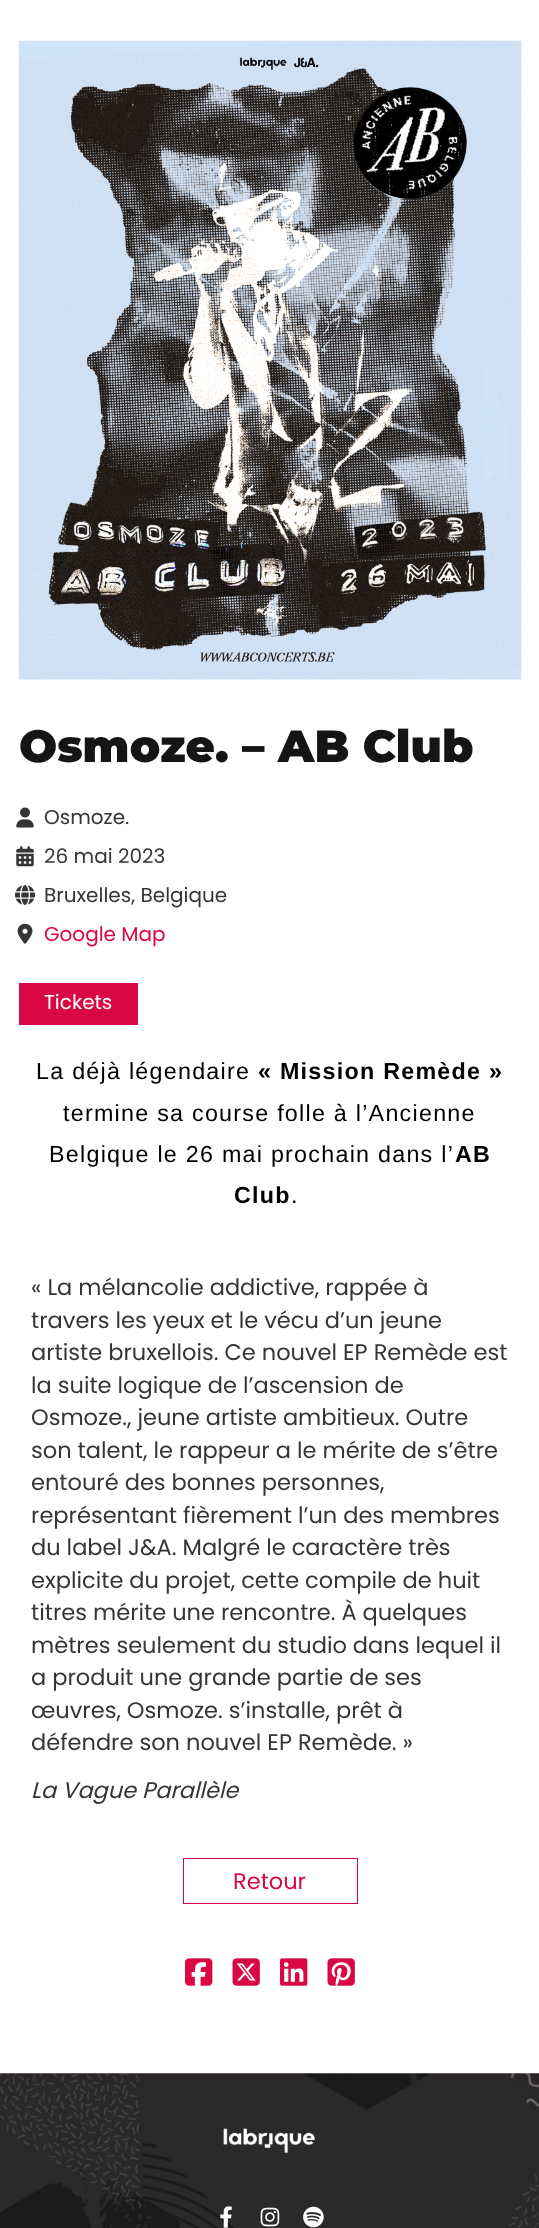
(async () => {
const canvas = document.querySelector("canvas")
canvas.width = 539
canvas.height = 2228
const c = canvas.getContext("2d")
c.miterLimit = 4
c.fontKerning = "normal"
function T(s,x,y){c.fillText(s,x,y)}
function R(x,y,w,h){c.fillRect(x,y,w,h)}
async function I(src,x,y,w,h){const img=new Image();img.src=src;await img.decode();c.drawImage(img,x,y,w,h)}
c.fillStyle="#fff"
R(0,0,539,2228)
await I("1.png",18,40,504,640)
c.font="900 45px Montserrat"
c.fillStyle="#151515"
T("Osmoze. – AB Club",19,762)
await I("2.png",16,807,18,21)
c.font="20px Poppins"
c.fillStyle="#353535"
T("Osmoze.",44,824)
await I("3.png",16,846,18,21)
T("26 mai 2023",44,863)
await I("4.png",15,885,20,20)
T("Bruxelles, Belgique",44,902)
await I("5.png",17,923,16,21)
c.fillStyle="#d90843"
T("Google Map",44,941)
R(19,983,119,42)
c.fillStyle="#fff"
T("Tickets",44,1009)
c.letterSpacing="1.25px"
c.font="23.3px Liberation Sans"
c.fillStyle="#000"
T("La déjà légendaire",36,1079)
c.font="bold 23.3px Liberation Sans"
T("« Mission Remède »",258,1079)
c.font="23.3px Liberation Sans"
T("termine sa course folle à l’Ancienne",63,1121)
T("Belgique le 26 mai prochain dans l’",49,1162)
c.font="bold 23.3px Liberation Sans"
T("AB",455,1162)
T("Club",234,1203)
c.font="23.3px Liberation Sans"
T(".",291,1203)
c.letterSpacing="0px"
c.font="22.5px Poppins"
c.fillStyle="#353535"
T("« La mélancolie addictive, rappée à",31,1295)
T("travers les yeux et le vécu d’un jeune",31,1328)
T("artiste bruxellois. Ce nouvel EP Remède est",31,1360)
T("la suite logique de l’ascension de",31,1393)
T("Osmoze., jeune artiste ambitieux. Outre",31,1425)
T("son talent, le rappeur a le mérite de s’être",31,1458)
T("entouré des bonnes personnes,",31,1490)
T("représentant fièrement l’un des membres",31,1523)
T("du label J&A. Malgré le caractère très",31,1555)
T("explicite du projet, cette compile de huit",31,1588)
T("titres mérite une rencontre. À quelques",31,1620)
T("mètres seulement du studio dans lequel il",31,1653)
T("a produit une grande partie de ses",31,1685)
T("œuvres, Osmoze. s’installe, prêt à",31,1718)
T("défendre son nouvel EP Remède. »",31,1750)
c.font="italic 22.5px Poppins"
T("La Vague Parallèle",31,1798)
c.strokeStyle="#d90843"
c.strokeRect(183.5,1858.5,174,45)
c.font="22.5px Poppins"
c.fillStyle="#d90843"
T("Retour",233,1889)
await I("6.png",185,1958,28,28)
await I("7.png",232,1958,28,28)
await I("8.png",280,1958,28,28)
await I("9.png",327,1958,28,28)
await I("10.png",0,2073,539,155)
await I("11.png",223,2128,92,25)
await I("12.png",220,2206,12,22)
await I("13.png",260,2207,20,20)
await I("14.png",303,2206,21,22)
})()
